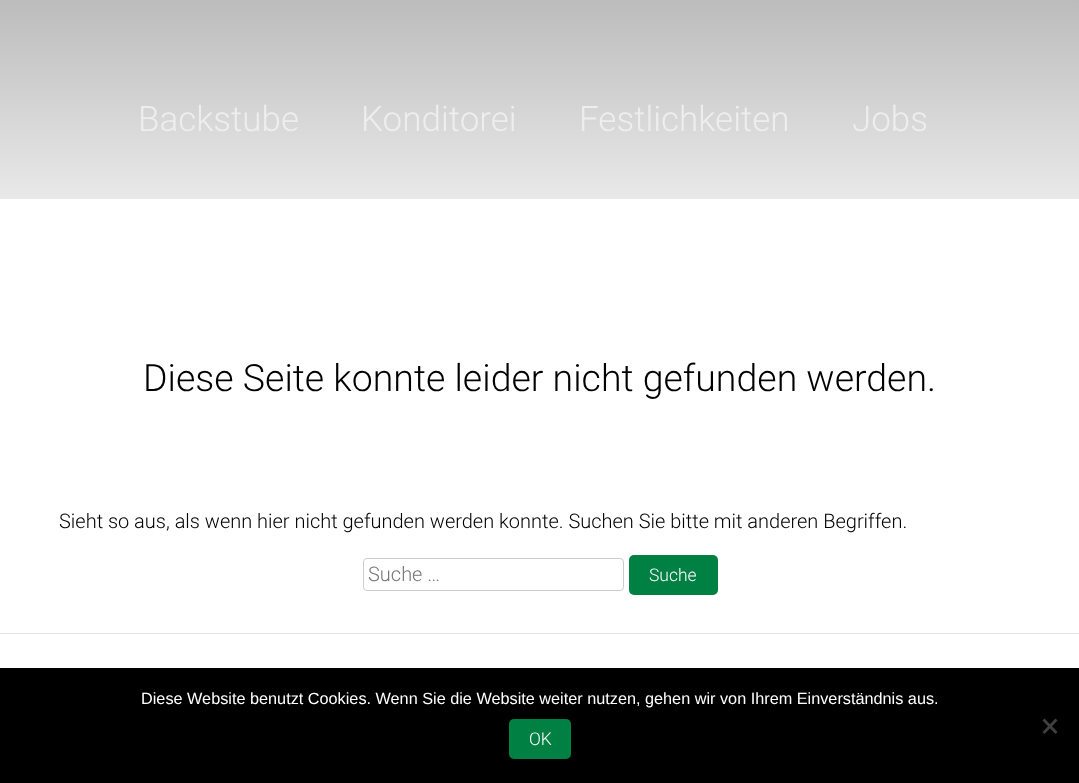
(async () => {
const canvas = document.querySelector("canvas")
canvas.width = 1079
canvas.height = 783
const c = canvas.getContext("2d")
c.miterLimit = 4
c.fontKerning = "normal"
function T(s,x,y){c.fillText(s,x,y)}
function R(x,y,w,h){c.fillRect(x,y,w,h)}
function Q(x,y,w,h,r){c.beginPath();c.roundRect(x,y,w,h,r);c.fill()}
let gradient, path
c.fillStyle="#fff"
R(0,0,1079,783)
gradient = c.createLinearGradient(540,199,540,0)
gradient.addColorStop(0,"#e9e9e9")
gradient.addColorStop(1,"#bcbcbc")
c.fillStyle = gradient
R(0,0,1079,199)
c.font="300 35px Roboto"
c.fillStyle="#eee"
T("Backstube",138,131)
T("Konditorei",361,131)
T("Festlichkeiten",579,131)
T("Jobs",852,131)
c.font="300 37.5px Roboto"
c.fillStyle="#000"
T("Diese Seite konnte leider nicht gefunden werden.",143,391)
c.font="300 20px Roboto"
T("Sieht so aus, als wenn hier nicht gefunden werden konnte. Suchen Sie bitte mit anderen Begriffen.",59,528)
c.beginPath()
c.roundRect(363.5,558.5,260,32,3.5)
c.strokeStyle="#ccc"
c.stroke()
c.fillStyle="#757575"
T("Suche …",368,581)
c.fillStyle="#008043"
Q(629,555,89,40,5)
c.font="300 17.5px Roboto"
c.fillStyle="#fff"
T("Suche",649,581)
c.fillStyle="#e1e4e6"
R(0,633,1079,1)
c.fillStyle="#000"
R(0,668,1079,115)
c.font="16.25px Liberation Sans"
c.fillStyle="#fff"
T("Diese Website benutzt Cookies. Wenn Sie die Website weiter nutzen, gehen wir von Ihrem Einverständnis aus.",141,704)
c.fillStyle="#404040"
path = new Path2D("M1055.5 718.5l2 2l-13 13.5l-2-2z")
c.fill(path)
path = new Path2D("M1042.5 720.5l2-2l13 13.5l-2 2z")
c.fill(path)
c.fillStyle="#008043"
Q(509,719,62,40,5)
c.font="300 17.5px Roboto"
c.fillStyle="#fff"
T("OK",529,745)
})()
